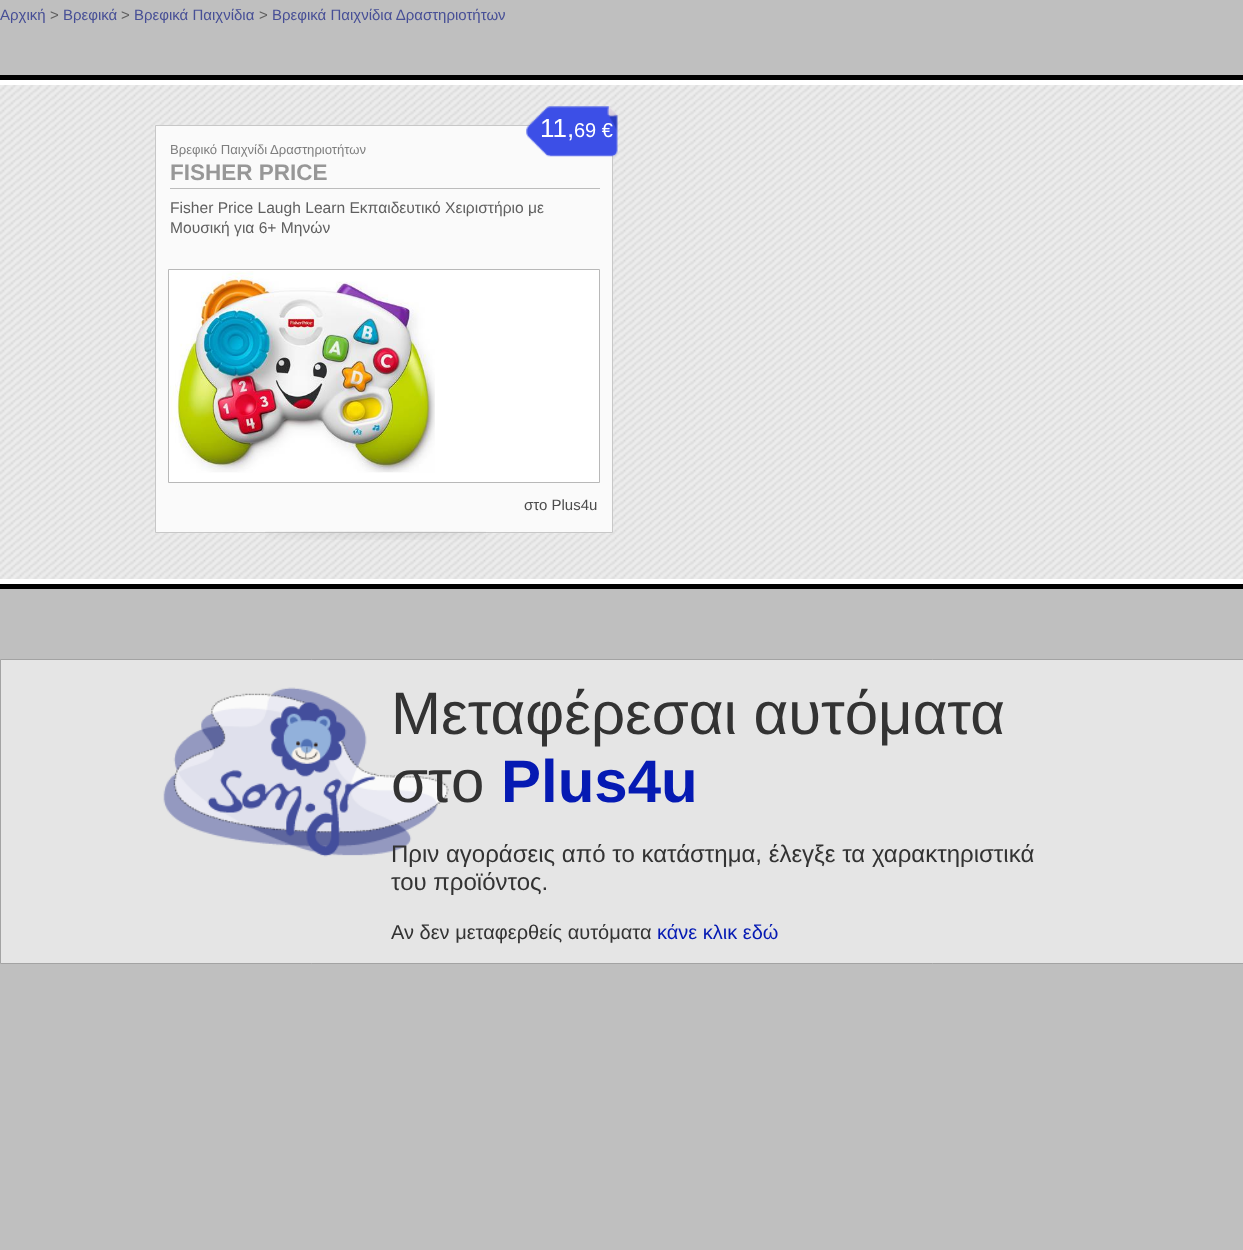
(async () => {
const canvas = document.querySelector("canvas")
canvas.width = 1243
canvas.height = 1250
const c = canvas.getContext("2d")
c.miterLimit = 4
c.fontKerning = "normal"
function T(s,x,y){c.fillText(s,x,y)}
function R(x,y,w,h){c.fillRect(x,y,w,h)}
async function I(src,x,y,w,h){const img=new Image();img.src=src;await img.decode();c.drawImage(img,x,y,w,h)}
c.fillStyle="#bfbfbf"
R(0,0,1243,1250)
c.font="15px Liberation Sans"
c.fillStyle="#474f96"
T("Αρχική",0,20)
c.fillStyle="#5f5f5f"
T(">",50,20)
c.fillStyle="#474f96"
T("Βρεφικά",63,20)
c.fillStyle="#5f5f5f"
T(">",121,20)
c.fillStyle="#474f96"
T("Βρεφικά Παιχνίδια",134,20)
c.fillStyle="#5f5f5f"
T(">",259,20)
c.fillStyle="#474f96"
T("Βρεφικά Παιχνίδια Δραστηριοτήτων",272,20)
c.strokeStyle="#000"
c.lineWidth=5
c.strokeRect(-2.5,77.5,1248,509)
await I("1.png",0,85,1243,494)
c.fillStyle="#fff"
R(0,80,1243,5)
R(0,579,1243,5)
c.fillStyle="#fafafa"
c.beginPath()
c.rect(155.5,125.5,457,407)
c.fill()
c.strokeStyle="#c7c7c7"
c.lineWidth=1
c.stroke()
await I("2.png",526,106,92,51)
c.font="26px Liberation Sans"
c.fillStyle="#fff"
T("11,",540,137)
c.font="20px Liberation Sans"
T("69 €",574,137)
c.font="13.1px Liberation Sans"
c.fillStyle="#7f7f7f"
T("Βρεφικό Παιχνίδι Δραστηριοτήτων",170,154)
c.fillStyle="#bcbcbc"
R(170,188,430,1)
c.font="bold 22.5px Liberation Sans"
c.fillStyle="#979797"
T("FISHER PRICE",170,180)
c.font="15.6px Liberation Sans"
c.fillStyle="#5f5f5f"
T("Fisher Price Laugh Learn Εκπαιδευτικό Χειριστήριο με",170,213)
T("Μουσική για 6+ Μηνών",170,233)
c.fillStyle="#fff"
c.beginPath()
c.rect(168.5,269.5,431,213)
c.fill()
c.strokeStyle="#b8b8b8"
c.stroke()
await I("3.png",170,271,265,202)
c.font="15px Liberation Sans"
c.fillStyle="#4c4c4c"
T("στο Plus4u",524,510)
await I("4.png",265,531,221,9)
c.fillStyle="#e5e5e5"
c.beginPath()
c.rect(.5,659.5,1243,304)
c.fill()
c.strokeStyle="#a3a3a3"
c.stroke()
await I("5.png",163,687,286,170)
c.font="60px Liberation Sans"
c.fillStyle="#333"
T("Μεταφέρεσαι αυτόματα",391,734)
T("στο",391,802)
c.font="bold 60px Liberation Sans"
c.fillStyle="#051ab3"
T("Plus4u",501,802)
c.font="24px Liberation Sans"
c.fillStyle="#333"
T("Πριν αγοράσεις από το κατάστημα, έλεγξε τα χαρακτηριστικά",391,862)
T("του προϊόντος.",391,890)
c.font="20px Liberation Sans"
T("Αν δεν μεταφερθείς αυτόματα",391,939)
c.fillStyle="#051ab3"
T("κάνε κλικ εδώ",657,939)
})()
